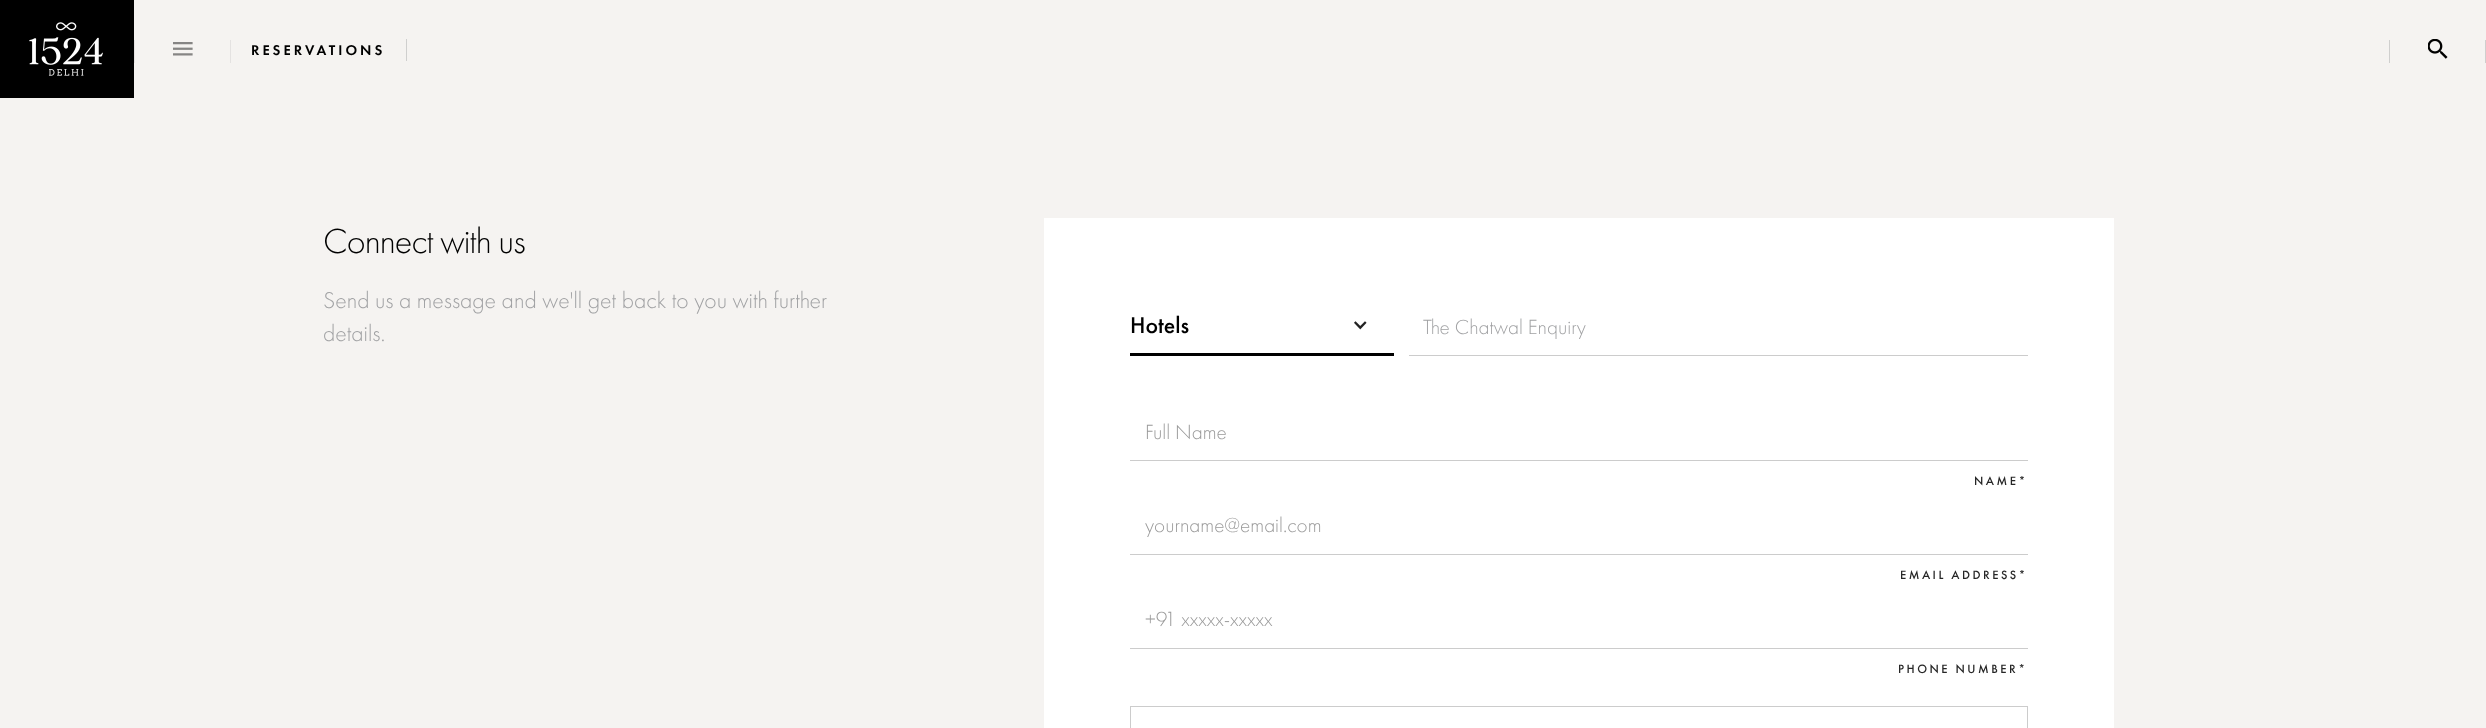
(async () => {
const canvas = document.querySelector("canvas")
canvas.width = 2486
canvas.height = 728
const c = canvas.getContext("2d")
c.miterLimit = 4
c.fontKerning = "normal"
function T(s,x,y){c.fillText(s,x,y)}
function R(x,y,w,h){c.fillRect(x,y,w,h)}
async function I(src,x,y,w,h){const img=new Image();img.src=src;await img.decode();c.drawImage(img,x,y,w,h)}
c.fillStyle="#f5f3f1"
R(0,0,2486,728)
c.fillStyle="#000"
R(0,0,134,98)
await I("1.png",29,22,74,54)
c.fillStyle="#e4e2e1"
R(134,40,1,23)
await I("2.png",173,42,20,14)
R(230,40,1,23)
c.letterSpacing="3px"
c.font="500 14.6px 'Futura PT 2'"
c.fillStyle="#000"
T("RESERVATIONS",251,55)
c.fillStyle="#cfcfce"
R(406,39,1,22)
R(2389,40,1,23)
await I("3.png",2428,39,20,20)
R(2485,40,1,23)
c.letterSpacing="-0.9px"
c.font="300 36.25px Futura PT"
c.fillStyle="#000"
T("Connect with us",323,253)
c.letterSpacing="0px"
c.font="300 23.75px Futura PT"
c.fillStyle="#a0a1a3"
T("Send us a message and we'll get back to you with further",323,308)
T("details.",323,341)
c.fillStyle="#fff"
R(1044,218,1070,510)
c.fillStyle="#000"
R(1130,353,264,3)
c.font="500 23.75px Futura PT"
T("Hotels",1130,333)
await I("4.png",1354,321,13,9)
c.fillStyle="#ccc"
R(1409,355,619,1)
c.font="300 21.25px Futura PT"
c.fillStyle="#a0a1a3"
T("The Chatwal Enquiry",1423,334)
c.fillStyle="#ccc"
R(1130,460,898,1)
c.fillStyle="#999"
T("Full Name",1145,439)
c.letterSpacing="2.5px"
c.font="500 12.5px Futura PT"
c.fillStyle="#262626"
T("NAME*",1974,485)
c.fillStyle="#ccc"
R(1130,554,898,1)
c.letterSpacing="0px"
c.font="300 21.25px Futura PT"
c.fillStyle="#999"
T("yourname@email.com",1145,532)
c.letterSpacing="2.5px"
c.font="500 12.5px Futura PT"
c.fillStyle="#262626"
T("EMAIL ADDRESS*",1900,579)
c.fillStyle="#ccc"
R(1130,648,898,1)
c.letterSpacing="0px"
c.font="300 21.25px Futura PT"
c.fillStyle="#999"
T("+91 xxxxx-xxxxx",1145,626)
c.letterSpacing="2.5px"
c.font="500 12.5px Futura PT"
c.fillStyle="#262626"
T("PHONE NUMBER*",1898,673)
c.strokeStyle="#ccc"
c.strokeRect(1130.5,706.5,897,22)
})()
